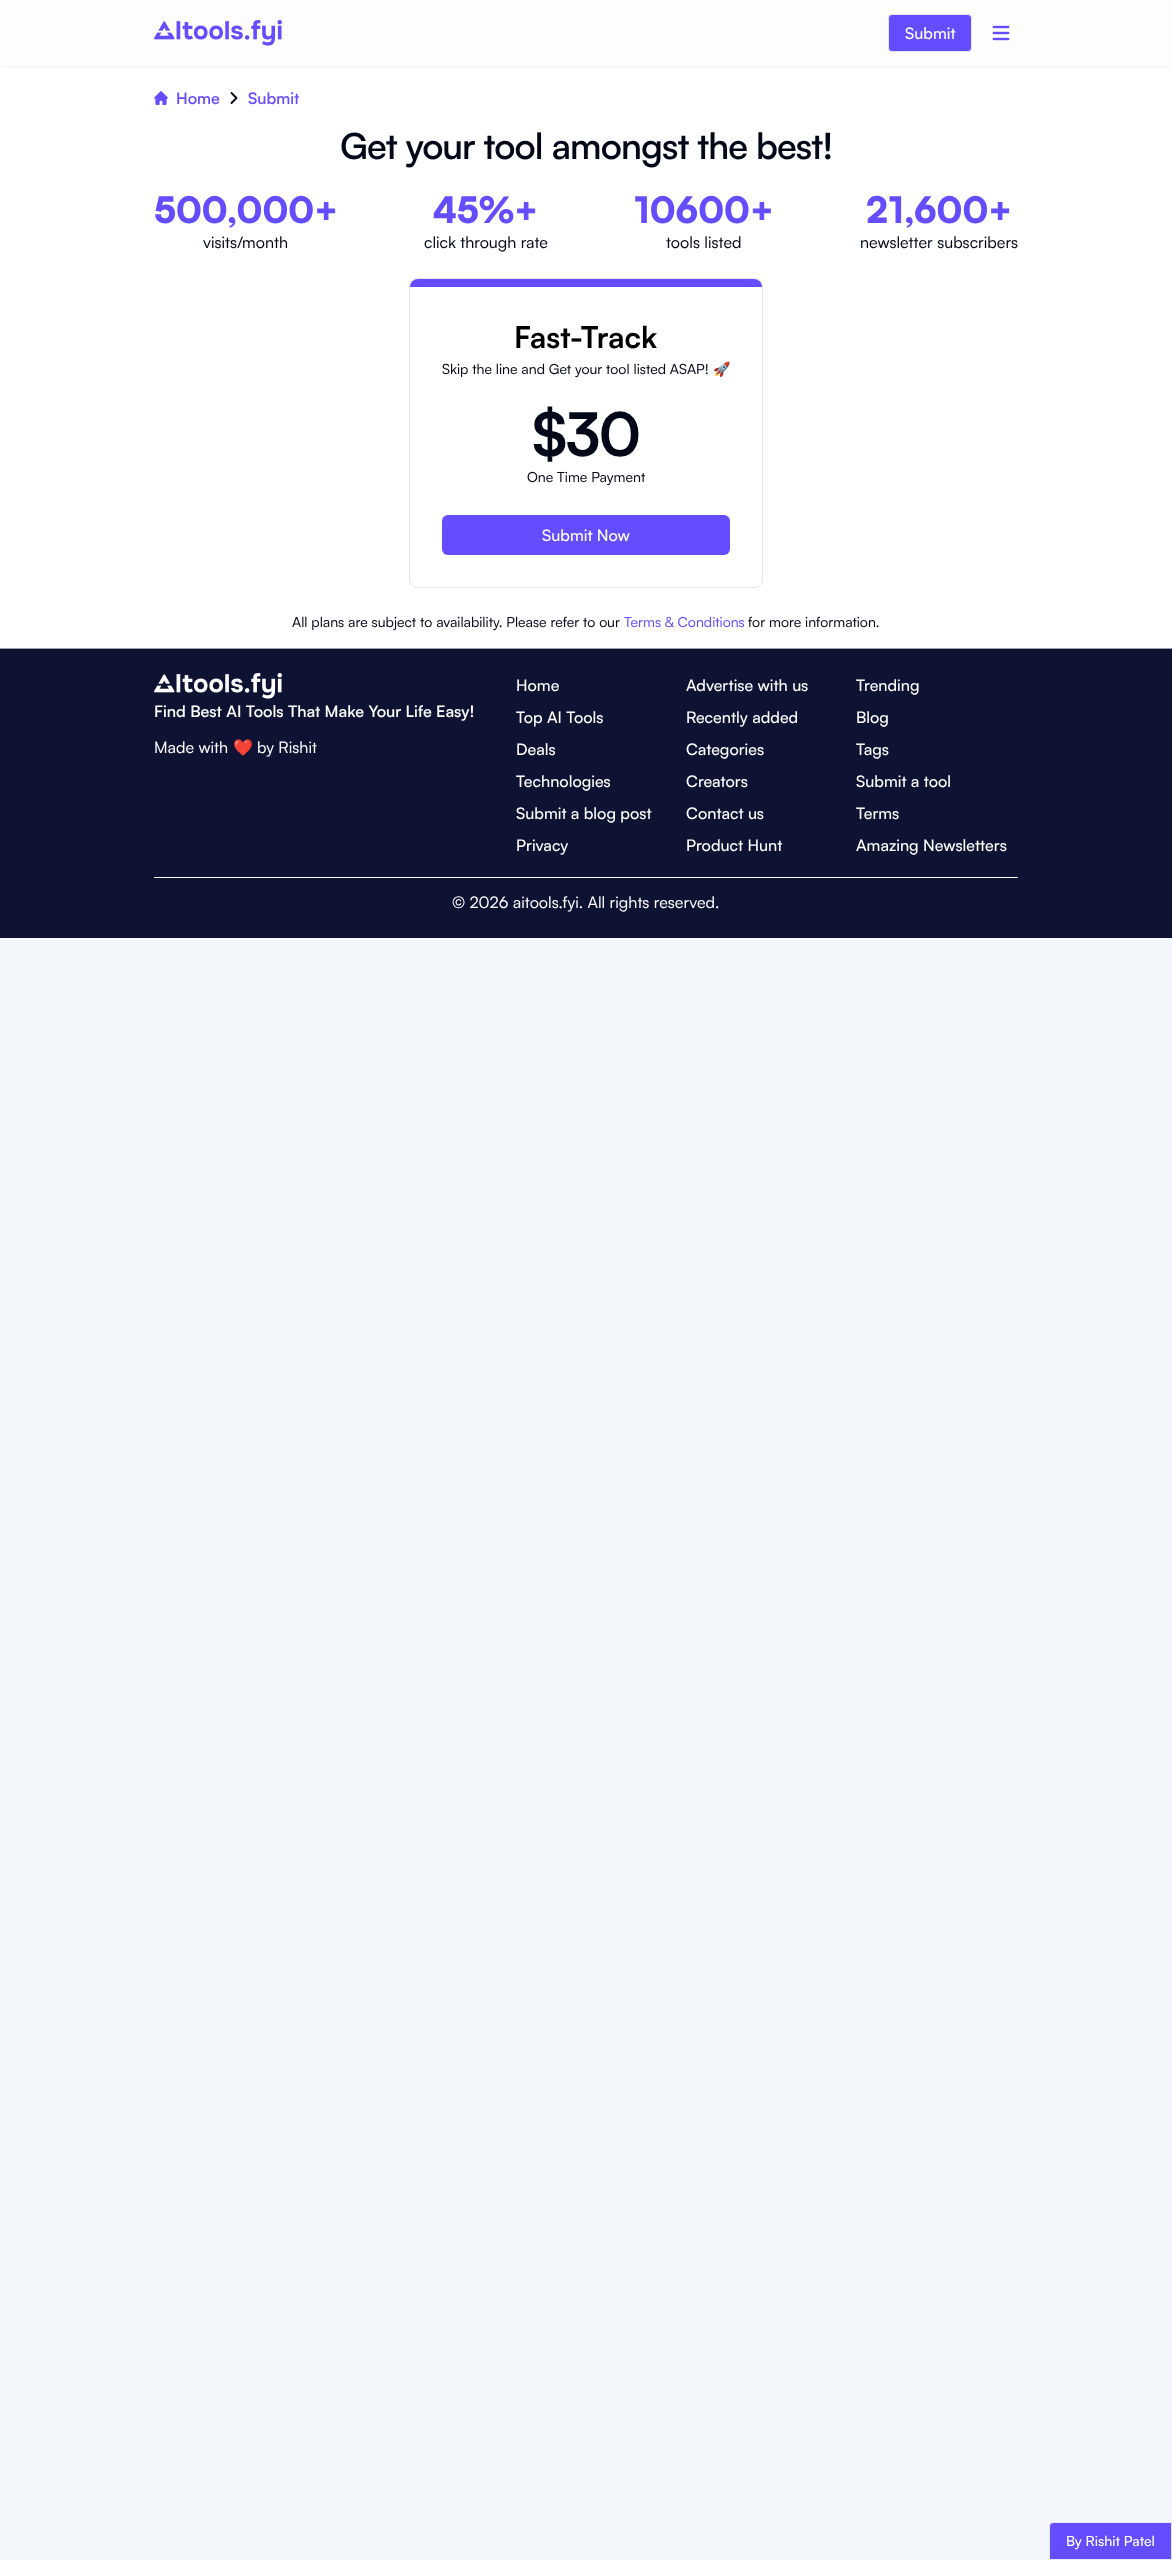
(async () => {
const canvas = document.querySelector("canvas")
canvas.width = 1172
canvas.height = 2560
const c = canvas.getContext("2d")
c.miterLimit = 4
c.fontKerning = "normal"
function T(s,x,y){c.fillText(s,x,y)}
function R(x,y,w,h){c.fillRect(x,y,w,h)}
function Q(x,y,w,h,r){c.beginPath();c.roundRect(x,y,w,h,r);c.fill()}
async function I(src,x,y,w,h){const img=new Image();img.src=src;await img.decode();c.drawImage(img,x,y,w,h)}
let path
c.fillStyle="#f3f6fb"
R(0,0,1172,2560)
c.fillStyle="#fff"
R(0,66,1172,582)
c.fillStyle="#0000000d"
c.filter="blur(1px)"
c.beginPath()
c.rect(0,1,1172,66)
c.fill()
c.filter="none"
c.fillStyle="#fdfdfe"
R(0,0,1172,66)
await I("1.png",154,20,128,26)
c.fillStyle="#644dff"
c.beginPath()
c.roundRect(888.5,14.5,83,37,3.5)
c.fill()
c.strokeStyle="#e2e8f0"
c.stroke()
c.font="500 16px Satoshi"
c.fillStyle="#fff"
T("Submit",905,39)
await I("2.png",992,25,18,16)
await I("3.png",154,91,14,14)
c.font="600 16px Satoshi"
c.fillStyle="#644dff"
T("Home",176,104)
path = new Path2D("M231.5 103l5-5l-5-5")
c.strokeStyle="#020817"
c.lineWidth=1.8
c.lineCap="round"
c.lineJoin="round"
c.stroke(path)
T("Submit",248,104)
c.letterSpacing="-0.9px"
c.font="600 36px Satoshi"
c.fillStyle="#020817"
T("Get your tool amongst the best!",340,159)
c.letterSpacing="0px"
c.font="900 36px Satoshi"
c.fillStyle="#644dff"
T("500,000+",154,223)
c.font="16px Satoshi"
c.fillStyle="#020817"
T("visits/month",203,248)
c.font="900 36px Satoshi"
c.fillStyle="#644dff"
T("45%+",433,223)
c.font="16px Satoshi"
c.fillStyle="#020817"
T("click through rate",424,248)
c.font="900 36px Satoshi"
c.fillStyle="#644dff"
T("10600+",634,223)
c.font="16px Satoshi"
c.fillStyle="#020817"
T("tools listed",666,248)
c.font="900 36px Satoshi"
c.fillStyle="#644dff"
T("21,600+",866,223)
c.font="16px Satoshi"
c.fillStyle="#020817"
T("newsletter subscribers",860,248)
c.beginPath()
c.roundRect(409.5,278.5,353,309,7.5)
c.strokeStyle="#e2e8f0"
c.lineWidth=1
c.lineJoin="miter"
c.stroke()
c.fillStyle="#644dff"
c.beginPath()
c.roundRect(410,279,352,8,[8,8,0,0])
c.fill()
c.font="bold 30px Satoshi"
c.fillStyle="#000"
T("Fast-Track",514,348)
c.font="14px Satoshi"
c.fillStyle="#020817"
T("Skip the line and Get your tool listed ASAP!",442,374)
c.font="14px Noto Color Emoji"
T("🚀",713,374)
c.letterSpacing="-1.5px"
c.font="bold 60px Satoshi"
T("$30",532,456)
c.letterSpacing="0px"
c.font="14px Satoshi"
T("One Time Payment",527,482)
c.fillStyle="#644dff"
Q(442,515,288,40,6)
c.font="500 16px Satoshi"
c.fillStyle="#fff"
T("Submit Now",542,541)
c.font="14px Satoshi"
c.fillStyle="#020817"
T("All plans are subject to availability. Please refer to our",292,627)
c.fillStyle="#644dff"
T("Terms & Conditions",624,627)
c.fillStyle="#020817"
T("for more information.",748,627)
c.fillStyle="#0e1334"
R(0,649,1172,289)
c.fillStyle="#9ca3af"
R(0,648,1172,1)
await I("4.png",154,673,128,26)
c.font="600 16px Satoshi"
c.fillStyle="#fff"
T("Find Best AI Tools That Make Your Life Easy!",154,717)
c.font="16px Satoshi"
T("Made with",154,753)
c.font="16px Noto Color Emoji"
T("❤️",233,753)
c.font="16px Satoshi"
T("by Rishit",257,753)
c.font="500 16px Satoshi"
T("Home",516,691)
T("Advertise with us",686,691)
T("Trending",856,691)
T("Top AI Tools",516,723)
T("Recently added",686,723)
T("Blog",856,723)
T("Deals",516,755)
T("Categories",686,755)
T("Tags",856,755)
T("Technologies",516,787)
T("Creators",686,787)
T("Submit a tool",856,787)
T("Submit a blog post",516,819)
T("Contact us",686,819)
T("Terms",856,819)
T("Privacy",516,851)
T("Product Hunt",686,851)
T("Amazing Newsletters",856,851)
R(154,877,864,1)
c.font="16px Satoshi"
T("© 2026 aitools.fyi. All rights reserved.",452,908)
c.fillStyle="#644dff"
c.beginPath()
c.roundRect(1049.5,2522.5,122,37,[3.5,0,0,0])
c.fill()
c.stroke()
c.font="500 14px Satoshi"
c.fillStyle="#fff"
T("By Rishit Patel",1066,2546)
})()
